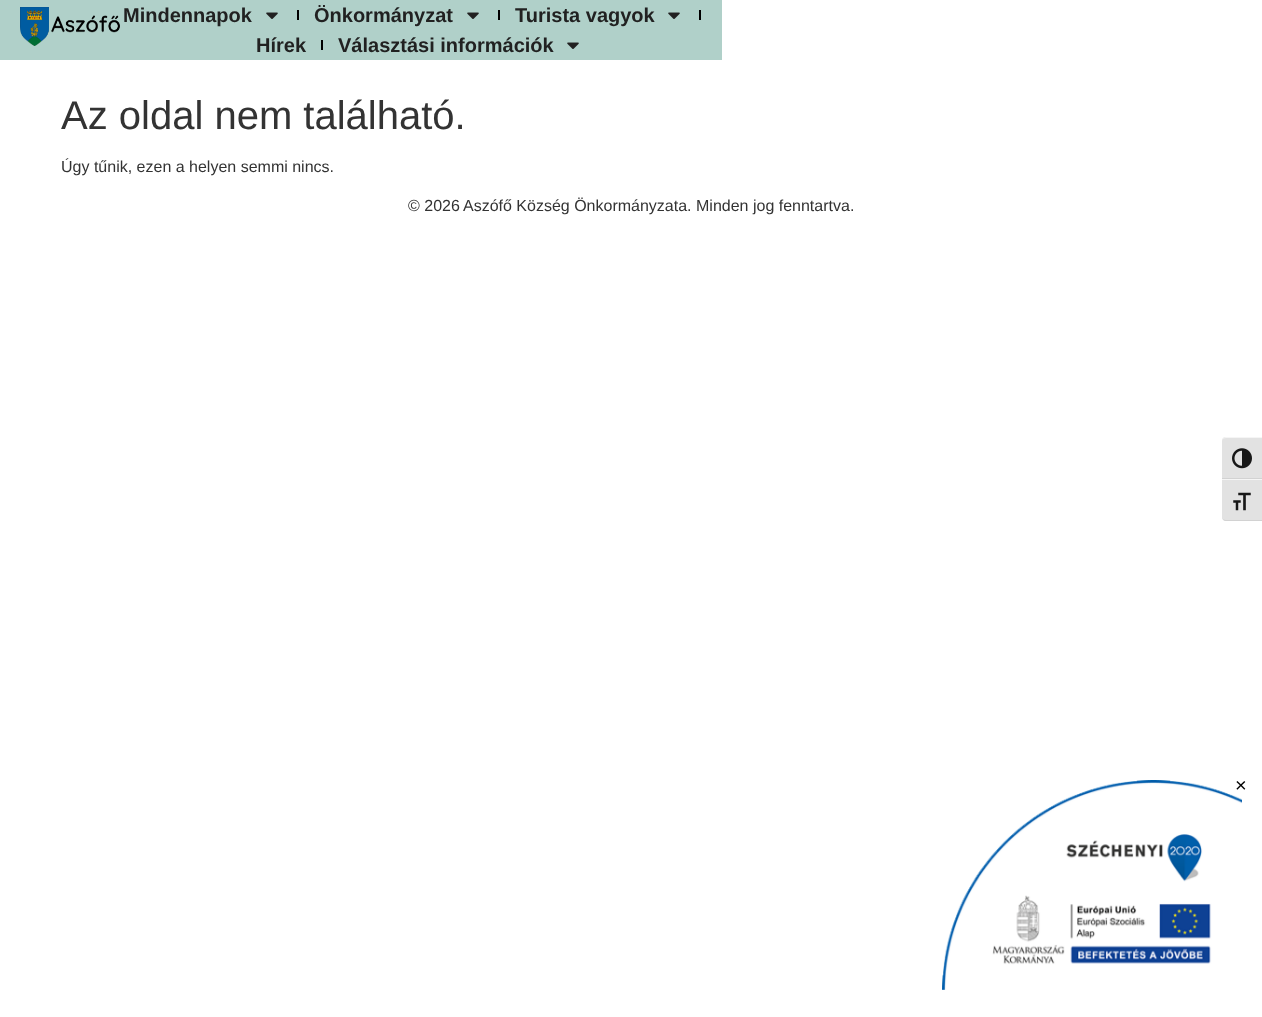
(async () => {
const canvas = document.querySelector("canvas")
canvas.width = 1262
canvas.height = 1017
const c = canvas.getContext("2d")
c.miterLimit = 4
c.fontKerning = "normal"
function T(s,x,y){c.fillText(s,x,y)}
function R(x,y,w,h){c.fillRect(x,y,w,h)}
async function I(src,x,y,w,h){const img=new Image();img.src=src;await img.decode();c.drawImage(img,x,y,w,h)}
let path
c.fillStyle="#fff"
R(0,0,1262,1017)
c.fillStyle="#b0d0c9"
R(0,0,722,60)
await I("1.png",20,7,100,39)
c.font="bold 20px Liberation Sans"
c.fillStyle="#212121"
T("Mindennapok",123,22)
await I("2.png",266,12,12,7)
c.fillStyle="#000"
R(297,10,2,10)
c.fillStyle="#212121"
T("Önkormányzat",314,22)
await I("2.png",467,12,12,7)
c.fillStyle="#000"
R(498,10,2,10)
c.fillStyle="#212121"
T("Turista vagyok",515,22)
await I("2.png",668,12,12,7)
c.fillStyle="#000"
R(699,10,2,10)
c.fillStyle="#212121"
T("Hírek",256,52)
c.fillStyle="#000"
R(321,40,2,10)
c.fillStyle="#212121"
T("Választási információk",338,52)
await I("2.png",567,42,12,7)
c.font="40px Liberation Sans"
c.fillStyle="#333"
T("Az oldal nem található.",61,129)
c.font="16px Liberation Sans"
T("Úgy tűnik, ezen a helyen semmi nincs.",61,172)
T("© 2026",408,211)
T("Aszófő Község Önkormányzata. Minden jog fenntartva.",463,211)
await I("3.png",942,780,300,210)
c.font="20px Liberation Sans"
c.fillStyle="#000"
T("×",1235,792)
c.fillStyle="#e2e2e2"
c.beginPath()
c.roundRect(1222,437,40,42,[4,0,0,0])
c.fill()
c.fillStyle="#f5f5f5"
path = new Path2D("M1226 438h36v-1h-36c-2 0-4 2-4 4c0-2 2-3 4-3z")
c.fill(path)
c.fillStyle="#d2d2d2"
R(1222,478,40,1)
await I("4.png",1232,448,20,21)
c.fillStyle="#e2e2e2"
c.beginPath()
c.roundRect(1222,479,40,42,[0,0,0,4])
c.fill()
c.fillStyle="#f5f5f5"
R(1222,479,40,1)
c.fillStyle="#d2d2d2"
path = new Path2D("M1262 521v-1h-36c-2 0-4-1-4-3c0 2 2 4 4 4z")
c.fill(path)
await I("5.png",1233,492,18,19)
})()
